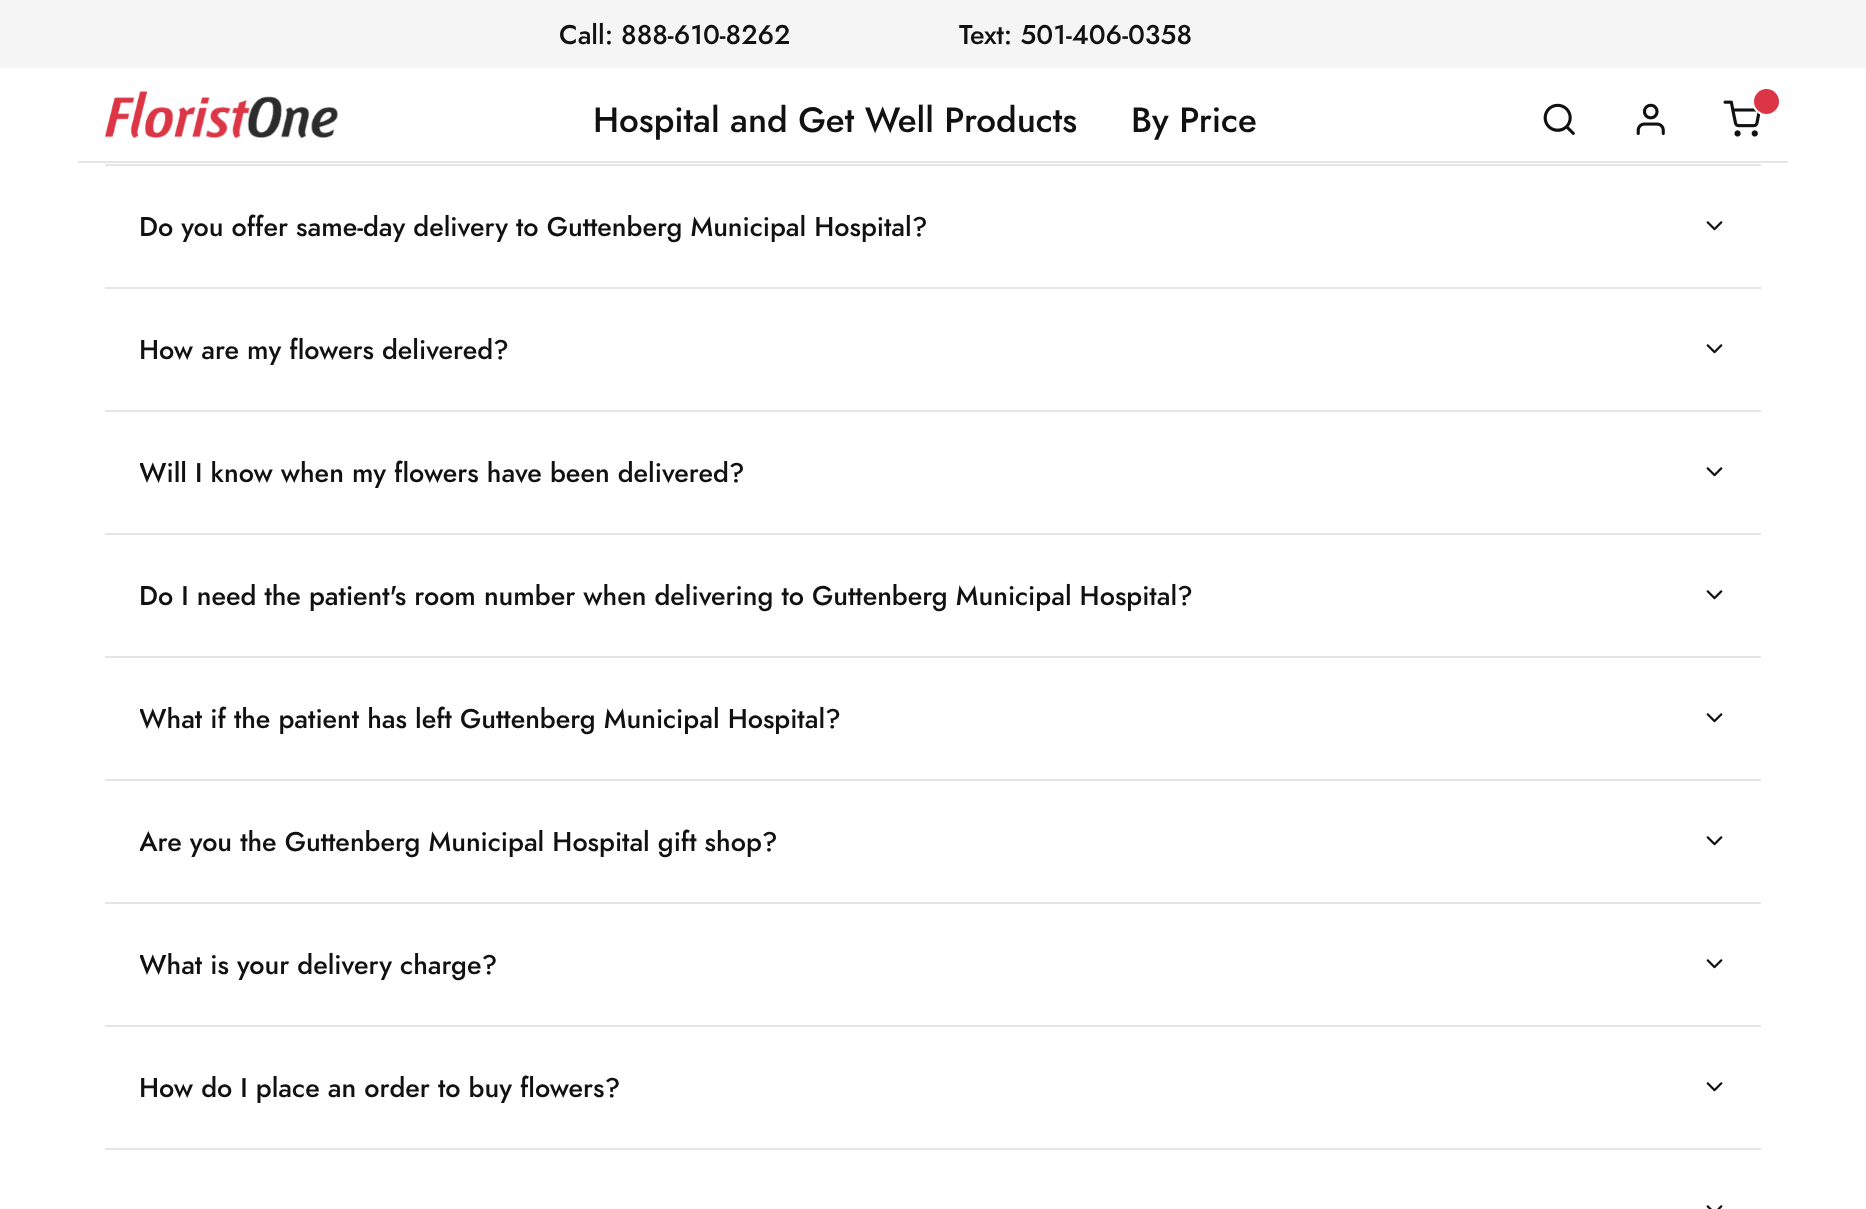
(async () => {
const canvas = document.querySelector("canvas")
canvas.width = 1866
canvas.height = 1209
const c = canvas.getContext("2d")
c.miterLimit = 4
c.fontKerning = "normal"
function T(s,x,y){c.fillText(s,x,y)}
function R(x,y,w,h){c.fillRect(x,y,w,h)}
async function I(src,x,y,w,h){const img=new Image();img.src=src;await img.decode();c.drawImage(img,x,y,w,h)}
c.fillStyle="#fff"
R(0,0,1866,1209)
c.fillStyle="#f5f5f5"
R(0,0,1866,68)
c.font="500 27px Jost"
c.fillStyle="#111"
T("Call: 888-610-8262",559,44)
T("Text: 501-406-0358",959,44)
c.fillStyle="#e5e5e5"
R(78,161,1710,2)
await I("1.png",105,91,233,47)
c.font="500 35.1px Jost"
c.fillStyle="#111"
T("Hospital and Get Well Products",593,132)
T("By Price",1131,132)
await I("2.png",1543,103,32,32)
await I("3.png",1636,103,29,32)
await I("4.png",1723,100,38,37)
c.fillStyle="#dc3545"
c.beginPath()
c.arc(1766.5,101.5,13.5,0,7)
c.fill()
c.strokeStyle="#fff"
c.lineWidth=2
c.stroke()
c.fillStyle="#e5e5e5"
R(105,164,1656,2)
R(105,287,1656,2)
c.font="500 27px Jost"
c.fillStyle="#111"
T("Do you offer same-day delivery to Guttenberg Municipal Hospital?",139,236)
await I("5.png",1706,221,17,10)
c.fillStyle="#e5e5e5"
R(105,410,1656,2)
c.fillStyle="#111"
T("How are my flowers delivered?",139,359)
await I("5.png",1706,344,17,10)
c.fillStyle="#e5e5e5"
R(105,533,1656,2)
c.save()
c.beginPath()
c.rect(140,452,1588,40)
c.clip()
c.fillStyle="#111"
T("Will I know when my flowers have been delivered?",139,482)
c.restore()
await I("5.png",1706,467,17,10)
R(105,656,1656,2)
c.fillStyle="#111"
T("Do I need the patient's room number when delivering to Guttenberg Municipal Hospital?",139,605)
await I("5.png",1706,590,17,10)
c.fillStyle="#e5e5e5"
R(105,779,1656,2)
c.save()
c.beginPath()
c.rect(140,698,1588,40)
c.clip()
c.fillStyle="#111"
T("What if the patient has left Guttenberg Municipal Hospital?",139,728)
c.restore()
await I("5.png",1706,713,17,10)
R(105,902,1656,2)
c.save()
c.beginPath()
c.rect(140,821,1588,40)
c.clip()
c.fillStyle="#111"
T("Are you the Guttenberg Municipal Hospital gift shop?",139,851)
c.restore()
await I("5.png",1706,836,17,10)
R(105,1025,1656,2)
c.save()
c.beginPath()
c.rect(140,944,1588,40)
c.clip()
c.fillStyle="#111"
T("What is your delivery charge?",139,974)
c.restore()
await I("5.png",1706,959,17,10)
R(105,1148,1656,2)
c.fillStyle="#111"
T("How do I place an order to buy flowers?",139,1097)
await I("5.png",1706,1082,17,10)
await I("6.png",1706,1205,17,4)
})()
